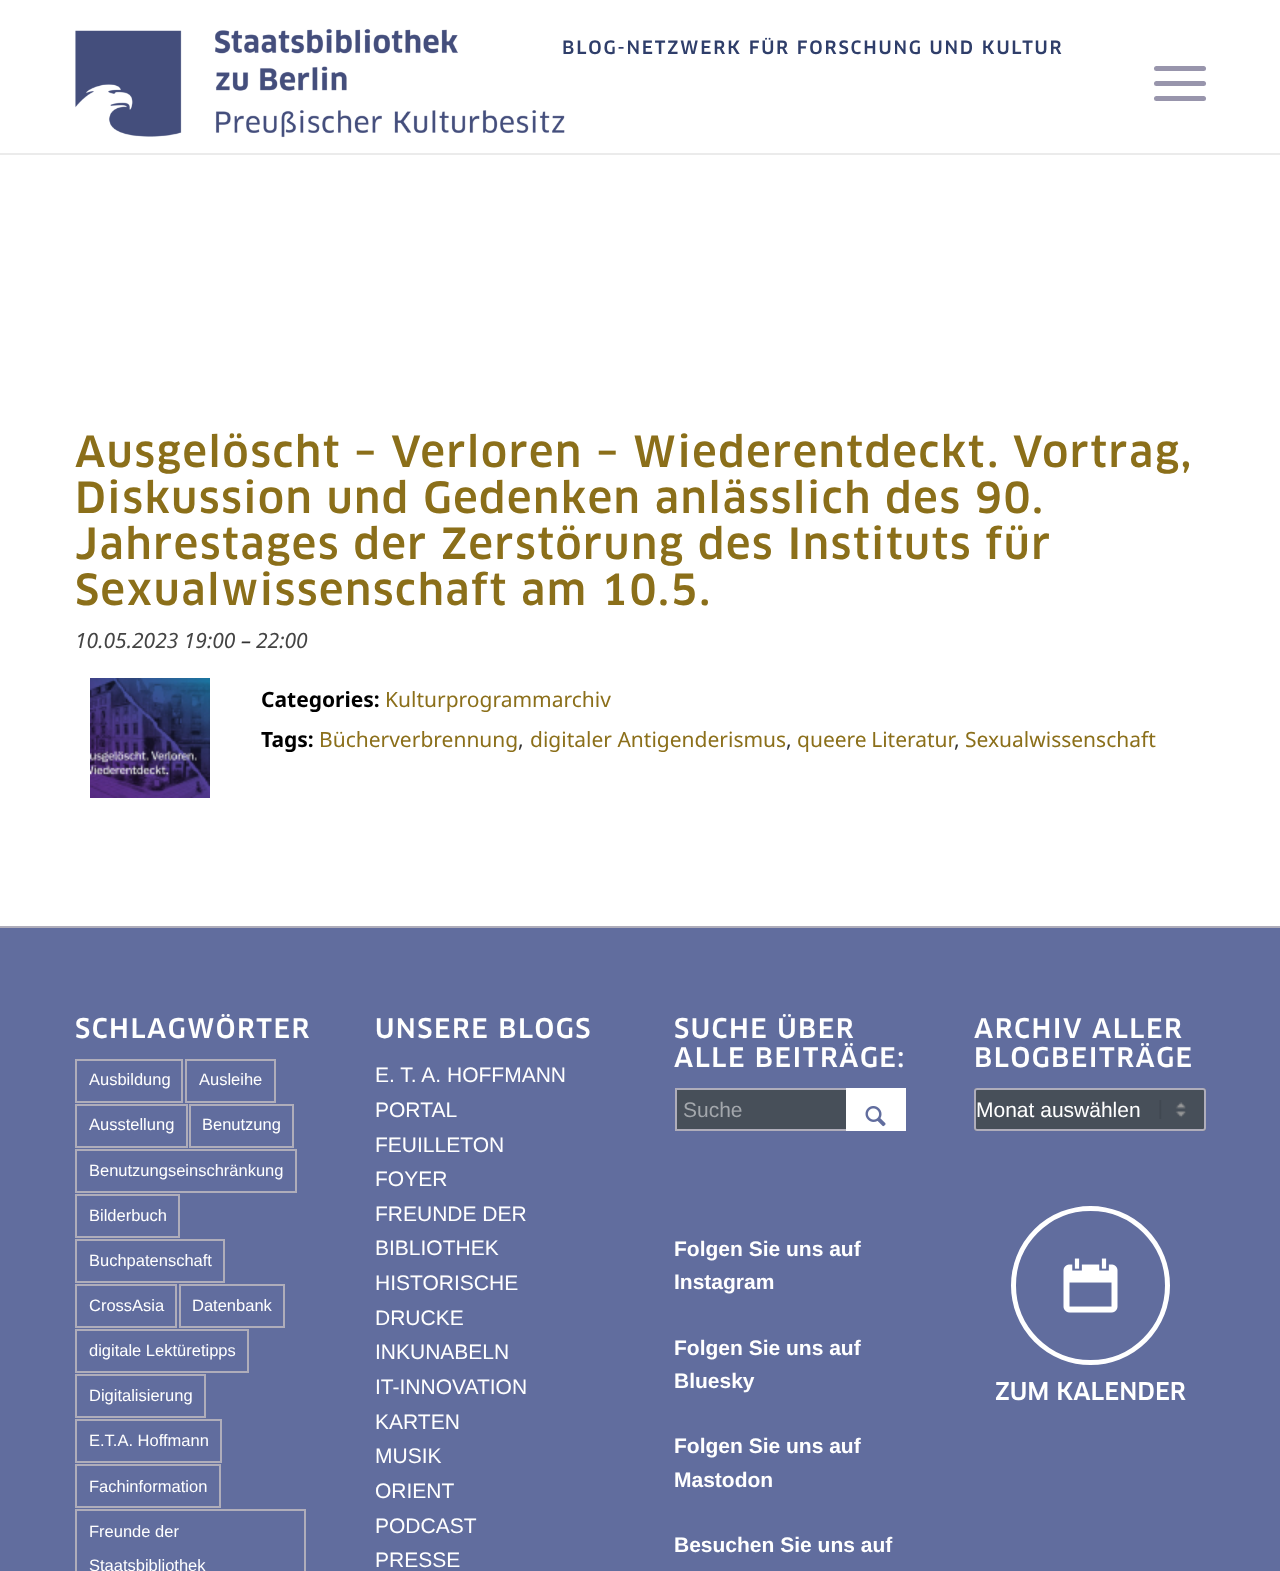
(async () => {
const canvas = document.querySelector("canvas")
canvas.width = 1280
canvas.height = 1571
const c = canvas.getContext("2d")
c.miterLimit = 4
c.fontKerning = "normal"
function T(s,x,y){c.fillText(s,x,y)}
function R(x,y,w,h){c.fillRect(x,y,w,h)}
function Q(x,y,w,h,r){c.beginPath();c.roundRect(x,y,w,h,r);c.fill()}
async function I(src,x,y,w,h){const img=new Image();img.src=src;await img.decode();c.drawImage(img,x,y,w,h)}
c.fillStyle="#fff"
R(0,0,1280,1571)
c.fillStyle="#ebebeb"
R(0,153,1280,2)
await I("1.png",75,28,490,110)
c.fillStyle="#9895ac"
Q(1154,81,52,5,2.5)
Q(1154,66,52,5,2.5)
Q(1154,96,52,5,2.5)
c.letterSpacing="1.8px"
c.font="500 18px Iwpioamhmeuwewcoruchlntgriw"
c.fillStyle="#2f3e6a"
T("BLOG-NETZWERK FÜR FORSCHUNG UND KULTUR",562,54)
c.letterSpacing="1.5px"
c.font="500 42px Iwpioamhmeuwewcoruchlntgriw"
c.fillStyle="#8b6f1a"
T("Ausgelöscht – Verloren – Wiederentdeckt. Vortrag,",75,467)
T("Diskussion und Gedenken anlässlich des 90.",75,513)
T("Jahrestages der Zerstörung des Instituts für",75,559)
T("Sexualwissenschaft am 10.5.",75,605)
c.letterSpacing="0px"
c.font="italic 21px Noto Sans"
c.fillStyle="#444"
T("10.05.2023 19:00",75,648)
c.fillStyle="#333"
T("–",241,648)
c.fillStyle="#444"
T("22:00",256,648)
await I("2.png",90,678,120,120)
c.font="bold 21px Noto Sans"
c.fillStyle="#000"
T("Categories:",261,707)
c.font="21px Noto Sans"
c.fillStyle="#8b6f1a"
T("Kulturprogrammarchiv",385,707)
c.font="bold 21px Noto Sans"
c.fillStyle="#000"
T("Tags:",261,747)
c.font="21px Noto Sans"
c.fillStyle="#8b6f1a"
T("Bücherverbrennung",319,747)
c.fillStyle="#333"
T(",",518,747)
c.fillStyle="#8b6f1a"
T("digitaler Antigenderismus",530,747)
c.fillStyle="#333"
T(",",786,747)
c.wordSpacing="-1px"
c.fillStyle="#8b6f1a"
T("queere Literatur",797,747)
c.wordSpacing="0px"
T("Sexualwissenschaft",965,747)
c.fillStyle="#333"
T(",",954,747)
c.fillStyle="#616d9e"
R(0,928,1280,643)
c.fillStyle="#afadba"
R(0,926,1280,2)
c.letterSpacing="1.5px"
c.font="500 26.5px Iwpioamhmeuwewcoruchlntgriw"
c.fillStyle="#fff"
T("SCHLAGWÖRTER",75,1038)
c.strokeStyle="#afadba"
c.lineWidth=2
c.strokeRect(76,1060,106,42)
c.letterSpacing="0px"
c.font="16.5px Liberation Sans"
T("Ausbildung",89,1085)
c.strokeRect(186,1060,89,42)
T("Ausleihe",199,1085)
c.strokeRect(76,1105,111,42)
T("Ausstellung",89,1130)
c.strokeRect(190,1105,103,42)
T("Benutzung",202,1130)
c.strokeRect(76,1150,220,42)
T("Benutzungseinschränkung",89,1176)
c.strokeRect(76,1195,103,42)
T("Bilderbuch",89,1221)
c.strokeRect(76,1240,148,42)
T("Buchpatenschaft",89,1266)
c.strokeRect(76,1285,100,42)
T("CrossAsia",89,1311)
c.strokeRect(180,1285,104,42)
T("Datenbank",192,1311)
c.strokeRect(76,1330,172,42)
T("digitale Lektüretipps",89,1356)
c.strokeRect(76,1375,129,42)
T("Digitalisierung",89,1401)
c.strokeRect(76,1420,145,42)
T("E.T.A. Hoffmann",89,1446)
c.strokeRect(76,1465,144,42)
T("Fachinformation",89,1492)
c.strokeRect(76,1510,229,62)
T("Freunde der",89,1537)
T("Staatsbibliothek",89,1571)
c.letterSpacing="1.5px"
c.font="500 26.5px Iwpioamhmeuwewcoruchlntgriw"
T("UNSERE BLOGS",375,1038)
c.letterSpacing="0px"
c.font="21px Liberation Sans"
T("E. T. A. HOFFMANN",375,1082)
T("PORTAL",375,1117)
T("FEUILLETON",375,1152)
T("FOYER",375,1186)
T("FREUNDE DER",375,1221)
T("BIBLIOTHEK",375,1255)
T("HISTORISCHE",375,1290)
T("DRUCKE",375,1325)
T("INKUNABELN",375,1359)
T("IT-INNOVATION",375,1394)
T("KARTEN",375,1429)
T("MUSIK",375,1463)
T("ORIENT",375,1498)
T("PODCAST",375,1533)
T("PRESSE",375,1567)
c.letterSpacing="1.5px"
c.font="500 26.5px Iwpioamhmeuwewcoruchlntgriw"
T("SUCHE ÜBER",674,1038)
T("ALLE BEITRÄGE:",674,1067)
c.fillStyle="#474f59"
R(677,1090,169,39)
c.strokeRect(676,1089,229,41)
c.letterSpacing="0px"
c.font="21px Liberation Sans"
c.fillStyle="#a3a7ac"
T("Suche",683,1117)
c.fillStyle="#fff"
R(846,1088,60,43)
await I("3.png",865,1106,21,21)
c.font="bold 21px Liberation Sans"
T("Folgen Sie uns auf",674,1256)
T("Instagram",674,1289)
T("Folgen Sie uns auf",674,1355)
T("Bluesky",674,1388)
T("Folgen Sie uns auf",674,1453)
T("Mastodon",674,1487)
T("Besuchen Sie uns auf",674,1552)
c.letterSpacing="1.5px"
c.font="500 26.5px Iwpioamhmeuwewcoruchlntgriw"
T("ARCHIV ALLER",974,1038)
T("BLOGBEITRÄGE",974,1067)
c.fillStyle="#474f59"
Q(974,1088,232,43,3)
await I("4.png",1159,1100,27,19)
c.beginPath()
c.roundRect(975,1089,230,41,2)
c.stroke()
c.letterSpacing="0px"
c.font="21px Liberation Sans"
c.fillStyle="#fff"
T("Monat auswählen",976,1117)
c.beginPath()
c.arc(1090.5,1285.5,77,0,7)
c.strokeStyle="#fff"
c.lineWidth=5
c.stroke()
await I("5.png",1063,1258,55,55)
c.font="500 24px Iwpioamhmeuwewcoruchlntgriw"
T("ZUM KALENDER",995,1400)
})()
